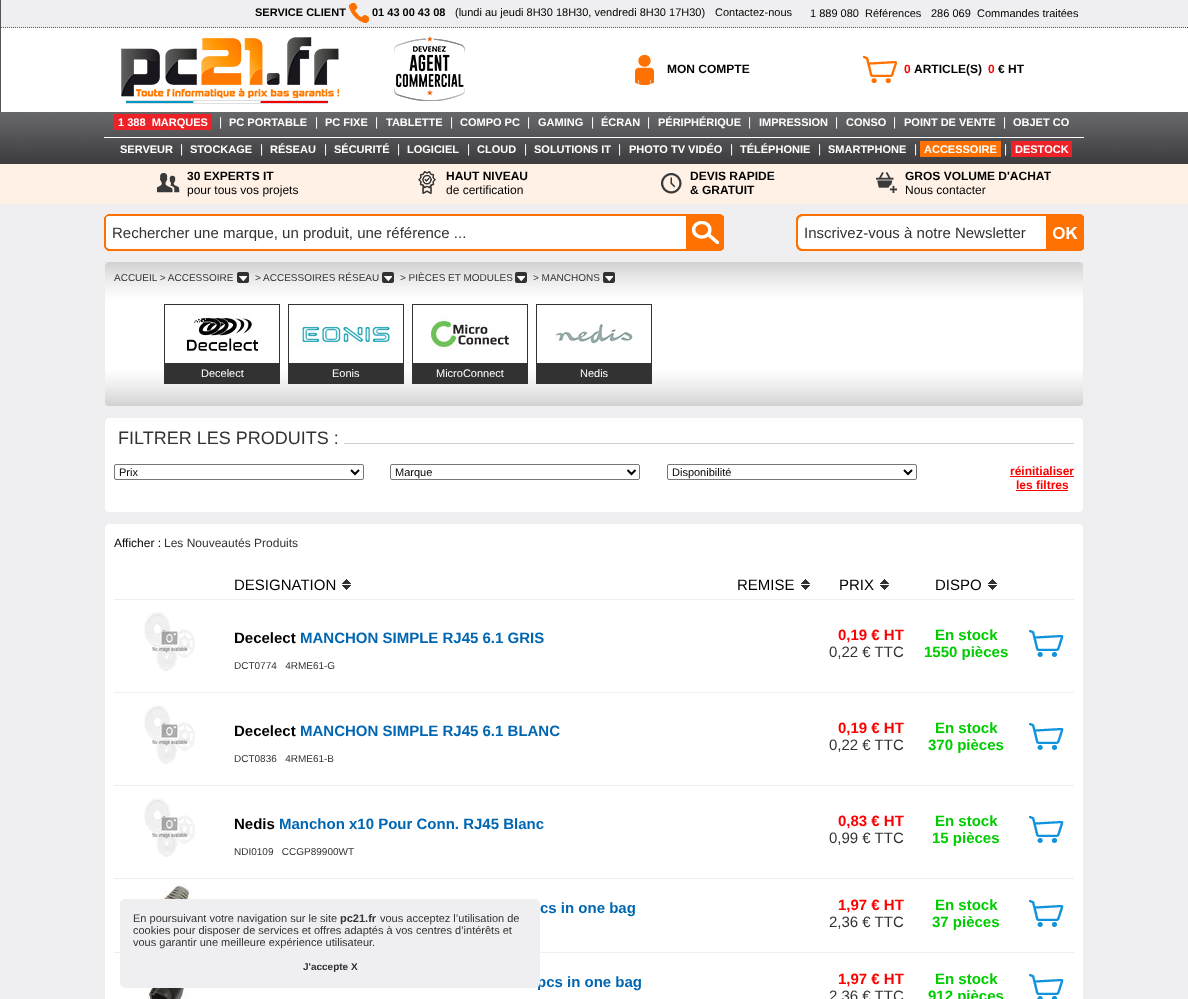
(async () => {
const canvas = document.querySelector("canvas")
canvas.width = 1188
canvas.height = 999
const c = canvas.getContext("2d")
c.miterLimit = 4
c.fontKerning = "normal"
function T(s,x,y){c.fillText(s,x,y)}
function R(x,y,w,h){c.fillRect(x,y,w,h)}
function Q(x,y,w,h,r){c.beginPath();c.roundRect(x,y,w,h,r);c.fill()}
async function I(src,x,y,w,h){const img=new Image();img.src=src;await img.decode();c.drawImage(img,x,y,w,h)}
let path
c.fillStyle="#efeff1"
R(0,0,1188,999)
c.fillStyle="#fff"
R(1,28,1187,84)
c.fillStyle="#555"
R(0,0,1,112)
path = new Path2D("M1 27.5h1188")
c.strokeStyle="#555"
c.setLineDash([1,1])
c.stroke(path)
c.font="bold 11px Liberation Sans"
c.fillStyle="#000"
T("SERVICE CLIENT",255,16)
await I("1.png",349,3,20,20)
T("01 43 00 43 08",372,16)
c.font="11px Liberation Sans"
T("(lundi au jeudi 8H30 18H30, vendredi 8H30 17H30)",455,16)
T("Contactez-nous",715,16)
T("1 889 080",810,17)
T("Références",865,17)
T("286 069",931,17)
T("Commandes traitées",977,17)
await I("2.png",121,37,218,67)
await I("3.png",394,36,71,65)
await I("4.png",635,55,19,30)
c.font="bold 12px Liberation Sans"
T("MON COMPTE",667,73)
await I("5.png",863,56,34,27)
c.fillStyle="#f00"
T("0",904,73)
c.fillStyle="#000"
T("ARTICLE(S)",914,73)
c.fillStyle="#f00"
T("0",988,73)
c.fillStyle="#000"
T("€ HT",998,73)
await I("6.png",0,112,1188,52)
c.fillStyle="#fff"
R(104,137,980,1)
c.fillStyle="#ed2229"
R(114,114,98,16)
c.font="bold 11px Liberation Sans"
c.fillStyle="#fff"
T("1 388  MARQUES",118,126)
c.font="12px Liberation Sans"
T("|",219,126)
c.font="bold 11px Liberation Sans"
T("PC PORTABLE",229,126)
c.font="12px Liberation Sans"
T("|",315,126)
c.font="bold 11px Liberation Sans"
T("PC FIXE",325,126)
c.font="12px Liberation Sans"
T("|",375,126)
c.font="bold 11px Liberation Sans"
T("TABLETTE",386,126)
c.font="12px Liberation Sans"
T("|",450,126)
c.font="bold 11px Liberation Sans"
T("COMPO PC",460,126)
c.font="12px Liberation Sans"
T("|",527,126)
c.font="bold 11px Liberation Sans"
T("GAMING",538,126)
c.font="12px Liberation Sans"
T("|",591,126)
c.font="bold 11px Liberation Sans"
T("ÉCRAN",601,126)
c.font="12px Liberation Sans"
T("|",647,126)
c.font="bold 11px Liberation Sans"
T("PÉRIPHÉRIQUE",658,126)
c.font="12px Liberation Sans"
T("|",748,126)
c.font="bold 11px Liberation Sans"
T("IMPRESSION",759,126)
c.font="12px Liberation Sans"
T("|",835,126)
c.font="bold 11px Liberation Sans"
T("CONSO",846,126)
c.font="12px Liberation Sans"
T("|",893,126)
c.font="bold 11px Liberation Sans"
T("POINT DE VENTE",904,126)
c.font="12px Liberation Sans"
T("|",1003,126)
c.font="bold 11px Liberation Sans"
T("OBJET CO",1013,126)
T("SERVEUR",120,153)
c.font="12px Liberation Sans"
T("|",180,153)
c.font="bold 11px Liberation Sans"
T("STOCKAGE",190,153)
c.font="12px Liberation Sans"
T("|",260,153)
c.font="bold 11px Liberation Sans"
T("RÉSEAU",270,153)
c.font="12px Liberation Sans"
T("|",324,153)
c.font="bold 11px Liberation Sans"
T("SÉCURITÉ",334,153)
c.font="12px Liberation Sans"
T("|",397,153)
c.font="bold 11px Liberation Sans"
T("LOGICIEL",407,153)
c.font="12px Liberation Sans"
T("|",467,153)
c.font="bold 11px Liberation Sans"
T("CLOUD",477,153)
c.font="12px Liberation Sans"
T("|",524,153)
c.font="bold 11px Liberation Sans"
T("SOLUTIONS IT",534,153)
c.font="12px Liberation Sans"
T("|",618,153)
c.font="bold 11px Liberation Sans"
T("PHOTO TV VIDÉO",629,153)
c.font="12px Liberation Sans"
T("|",730,153)
c.font="bold 11px Liberation Sans"
T("TÉLÉPHONIE",740,153)
c.font="12px Liberation Sans"
T("|",818,153)
c.font="bold 11px Liberation Sans"
T("SMARTPHONE",828,153)
c.font="12px Liberation Sans"
T("|",914,153)
c.fillStyle="#ff7100"
R(920,141,81,16)
c.font="bold 11px Liberation Sans"
c.fillStyle="#fff"
T("ACCESSOIRE",924,153)
c.font="12px Liberation Sans"
T("|",1004,153)
c.fillStyle="#ed2229"
R(1011,141,61,16)
c.font="bold 11px Liberation Sans"
c.fillStyle="#fff"
T("DESTOCK",1015,153)
c.fillStyle="#fff1e6"
R(0,164,1188,40)
await I("7.png",157,173,23,20)
c.font="bold 12px Liberation Sans"
c.fillStyle="#000"
T("30 EXPERTS IT",187,180)
c.font="12px Liberation Sans"
T("pour tous vos projets",187,194)
await I("8.png",418,171,18,23)
c.font="bold 12px Liberation Sans"
T("HAUT NIVEAU",446,180)
c.font="12px Liberation Sans"
T("de certification",446,194)
await I("9.png",661,173,21,21)
c.font="bold 12px Liberation Sans"
T("DEVIS RAPIDE",690,180)
T("& GRATUIT",690,194)
await I("10.png",876,172,21,21)
T("GROS VOLUME D'ACHAT",905,180)
c.font="12px Liberation Sans"
T("Nous contacter",905,194)
await I("11.png",104,214,582,37)
c.font="15px Liberation Sans"
c.fillStyle="#323232"
T("Rechercher une marque, un produit, une référence ...",112,238)
await I("12.png",686,214,38,37)
await I("13.png",796,214,250,37)
T("Inscrivez-vous à notre Newsletter",804,238)
await I("14.png",1046,214,38,37)
c.fillStyle="#fff"
Q(104,261,980,146,5)
await I("15.png",105,262,979,144)
c.beginPath()
c.roundRect(104.5,261.5,979,145,4.5)
c.strokeStyle="#eee"
c.setLineDash([])
c.stroke()
c.font="10px Liberation Sans"
c.fillStyle="#323232"
T("ACCUEIL > ACCESSOIRE",114,281)
Q(237,272,12,11,2)
await I("16.png",239,276,8,5)
T("> ACCESSOIRES RÉSEAU",255,281)
Q(382,272,12,11,2)
await I("16.png",384,276,8,5)
T("> PIÈCES ET MODULES",400,281)
Q(515,272,12,11,2)
await I("16.png",517,276,8,5)
T("> MANCHONS",533,281)
Q(603,272,12,11,2)
await I("16.png",605,276,8,5)
c.strokeStyle="#323232"
c.strokeRect(164.5,304.5,115,79)
await I("17.png",185,314,76,40)
R(165,363,114,20)
c.font="11px Liberation Sans"
c.fillStyle="#fff"
T("Decelect",201,377)
c.strokeRect(288.5,304.5,115,79)
await I("18.png",296,324,96,24)
c.fillStyle="#323232"
R(289,363,114,20)
c.fillStyle="#fff"
T("Eonis",332,377)
c.strokeRect(412.5,304.5,115,79)
await I("19.png",431,314,78,40)
c.fillStyle="#323232"
R(413,363,114,20)
c.fillStyle="#fff"
T("MicroConnect",436,377)
c.strokeRect(536.5,304.5,115,79)
await I("20.png",555,323,78,23)
c.fillStyle="#323232"
R(537,363,114,20)
c.fillStyle="#fff"
T("Nedis",580,377)
c.beginPath()
c.roundRect(104.5,417.5,979,95,4.5)
c.fill()
c.strokeStyle="#eee"
c.stroke()
c.font="18px Liberation Sans"
c.fillStyle="#323232"
T("FILTRER LES PRODUITS :",118,444)
c.fillStyle="#ccc"
R(344,443,730,1)
c.beginPath()
c.roundRect(114.5,464.5,249,15,1.5)
c.strokeStyle="#767676"
c.stroke()
path = new Path2D("M351 470l4 4l4-4")
c.strokeStyle="#000"
c.lineWidth=2
c.stroke(path)
c.font="11px Liberation Sans"
c.fillStyle="#000"
T("Prix",119,476)
c.beginPath()
c.roundRect(390.5,464.5,249,15,1.5)
c.strokeStyle="#767676"
c.lineWidth=1
c.stroke()
path = new Path2D("M627.5 470l4 4l4-4")
c.strokeStyle="#000"
c.lineWidth=2
c.stroke(path)
T("Marque",395,476)
c.beginPath()
c.roundRect(667.5,464.5,249,15,1.5)
c.strokeStyle="#767676"
c.lineWidth=1
c.stroke()
path = new Path2D("M904 470l4 4l4-4")
c.strokeStyle="#000"
c.lineWidth=2
c.stroke(path)
T("Disponibilité",672,476)
c.font="bold 12px Liberation Sans"
c.fillStyle="#f00"
T("réinitialiser",1010,475)
R(1010,476,64,1)
T("les filtres",1016,489)
R(1016,490,52,1)
c.fillStyle="#fff"
c.beginPath()
c.roundRect(104.5,523.5,979,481,4.5)
c.fill()
c.strokeStyle="#eee"
c.lineWidth=1
c.stroke()
c.font="12px Liberation Sans"
c.fillStyle="#000"
T("Afficher :",114,547)
c.fillStyle="#323232"
T("Les Nouveautés Produits",164,547)
c.font="15px Liberation Sans"
c.fillStyle="#000"
T("DESIGNATION",234,590)
await I("21.png",342,579,9,11)
T("REMISE",737,590)
await I("21.png",801,579,9,11)
T("PRIX",839,590)
await I("21.png",880,579,9,11)
T("DISPO",935,590)
await I("21.png",988,579,9,11)
c.fillStyle="#eee"
R(114,599,960,1)
R(114,692,960,1)
await I("22.png",144,612,51,60)
c.font="bold 15px Liberation Sans"
c.fillStyle="#000"
T("Decelect",234,643)
c.fillStyle="#0066b1"
T("MANCHON SIMPLE RJ45 6.1 GRIS",300,643)
c.font="10px Liberation Sans"
c.fillStyle="#323232"
T("DCT0774   4RME61-G",234,669)
c.font="bold 15px Liberation Sans"
c.fillStyle="#f00"
T("0,19 € HT",838,640)
c.font="15px Liberation Sans"
c.fillStyle="#323232"
T("0,22 € TTC",829,657)
c.font="bold 15px Liberation Sans"
c.fillStyle="#0c0"
T("En stock",935,640)
T("1550 pièces",924,657)
await I("23.png",1029,630,35,27)
c.fillStyle="#eee"
R(114,785,960,1)
await I("22.png",144,705,51,60)
c.fillStyle="#000"
T("Decelect",234,736)
c.fillStyle="#0066b1"
T("MANCHON SIMPLE RJ45 6.1 BLANC",300,736)
c.font="10px Liberation Sans"
c.fillStyle="#323232"
T("DCT0836   4RME61-B",234,762)
c.font="bold 15px Liberation Sans"
c.fillStyle="#f00"
T("0,19 € HT",838,733)
c.font="15px Liberation Sans"
c.fillStyle="#323232"
T("0,22 € TTC",829,750)
c.font="bold 15px Liberation Sans"
c.fillStyle="#0c0"
T("En stock",935,733)
T("370 pièces",928,750)
await I("23.png",1029,723,35,27)
c.fillStyle="#eee"
R(114,878,960,1)
await I("22.png",144,798,51,60)
c.fillStyle="#000"
T("Nedis",234,829)
c.fillStyle="#0066b1"
T("Manchon x10 Pour Conn. RJ45 Blanc",279,829)
c.font="10px Liberation Sans"
c.fillStyle="#323232"
T("NDI0109   CCGP89900WT",234,855)
c.font="bold 15px Liberation Sans"
c.fillStyle="#f00"
T("0,83 € HT",838,826)
c.font="15px Liberation Sans"
c.fillStyle="#323232"
T("0,99 € TTC",829,843)
c.font="bold 15px Liberation Sans"
c.fillStyle="#0c0"
T("En stock",935,826)
T("15 pièces",932,843)
await I("23.png",1029,816,35,27)
c.fillStyle="#eee"
R(114,952,6,1)
await I("24.png",148,883,47,16)
R(540,952,534,1)
c.fillStyle="#0066b1"
T("cs in one bag",540,913)
c.fillStyle="#f00"
T("1,97 € HT",838,910)
c.font="15px Liberation Sans"
c.fillStyle="#323232"
T("2,36 € TTC",829,927)
c.font="bold 15px Liberation Sans"
c.fillStyle="#0c0"
T("En stock",935,910)
T("37 pièces",932,927)
await I("23.png",1029,900,35,27)
c.fillStyle="#0066b1"
T("pcs in one bag",537,987)
c.fillStyle="#f00"
T("1,97 € HT",838,984)
c.font="15px Liberation Sans"
c.fillStyle="#323232"
T("2,36 € TTC",829,1001)
c.font="bold 15px Liberation Sans"
c.fillStyle="#0c0"
T("En stock",935,984)
T("912 pièces",928,1001)
await I("25.png",1029,974,35,25)
await I("26.png",148,988,48,11)
c.fillStyle="#efeff1"
Q(120,899,420,89,5)
c.font="11px Liberation Sans"
c.fillStyle="#323232"
T("En poursuivant votre navigation sur le site",133,922)
c.font="bold 11px Liberation Sans"
T("pc21.fr",340,922)
c.font="11px Liberation Sans"
T("vous acceptez l’utilisation de",380,922)
T("cookies pour disposer de services et offres adaptés à vos centres d’intérêts et",133,934)
T("vous garantir une meilleure expérience utilisateur.",133,946)
c.font="bold 10px Liberation Sans"
T("J'accepte X",303,970)
})()
